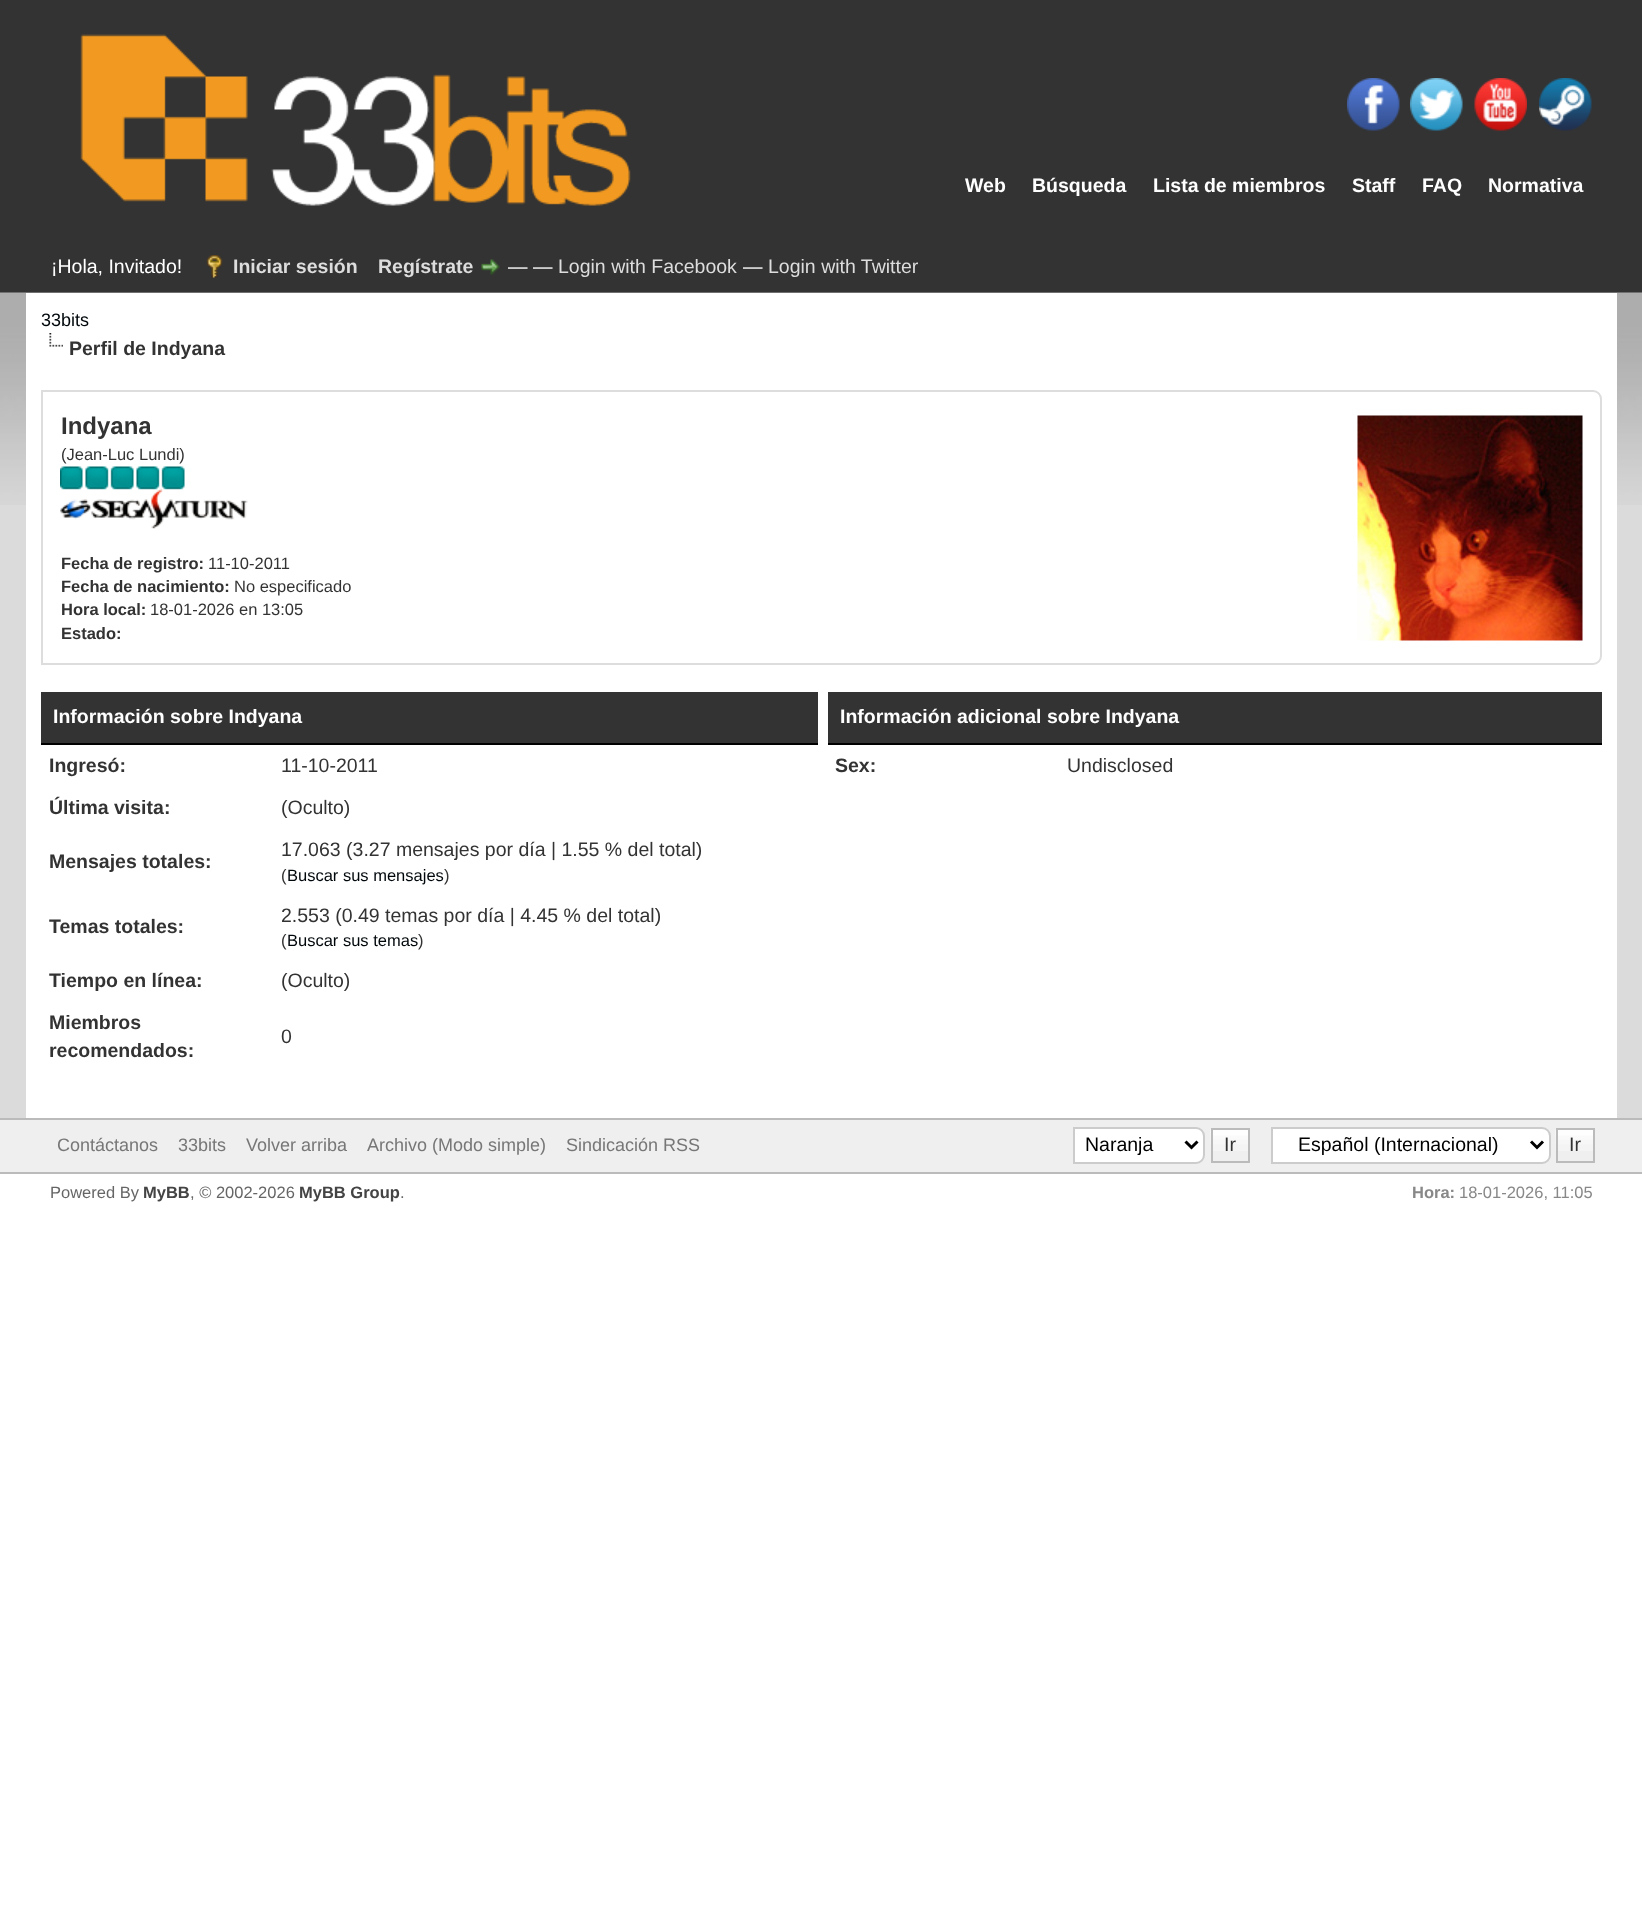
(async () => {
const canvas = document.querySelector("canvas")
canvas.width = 1642
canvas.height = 1919
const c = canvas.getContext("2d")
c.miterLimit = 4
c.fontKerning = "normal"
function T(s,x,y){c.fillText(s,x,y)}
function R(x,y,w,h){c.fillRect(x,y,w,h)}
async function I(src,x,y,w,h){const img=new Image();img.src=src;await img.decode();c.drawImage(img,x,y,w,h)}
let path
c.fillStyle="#fff"
R(0,0,1642,1919)
c.fillStyle="#333"
R(0,0,1642,293)
await I("1.png",80,34,551,172)
await I("2.png",1347,78,53,53)
await I("3.png",1410,78,53,53)
await I("4.png",1474,78,53,53)
await I("5.png",1539,78,53,53)
c.font="bold 19.5px Liberation Sans"
c.fillStyle="#fff"
T("Web",965,192)
T("Búsqueda",1032,192)
T("Lista de miembros",1153,192)
T("Staff",1352,192)
T("FAQ",1422,192)
T("Normativa",1488,192)
c.font="19.5px Liberation Sans"
T("¡Hola, Invitado!",51,273)
await I("6.png",206,255,17,23)
c.font="bold 19.5px Liberation Sans"
c.fillStyle="#ddd"
T("Iniciar sesión",233,273)
T("Regístrate",378,273)
await I("7.png",481,259,19,16)
c.font="19.5px Liberation Sans"
c.fillStyle="#fff"
T("— —",508,273)
c.fillStyle="#ddd"
T("Login with Facebook",558,273)
c.fillStyle="#fff"
T("—",743,273)
c.fillStyle="#ddd"
T("Login with Twitter",768,273)
c.fillStyle="#dbdbdb"
R(0,505,1642,613)
await I("8.png",0,292,1642,213)
c.fillStyle="#fff"
R(26,293,1591,825)
c.font="18px Liberation Sans"
c.fillStyle="#00070b"
T("33bits",41,326)
await I("9.png",49,333,14,14)
c.font="bold 19.5px Liberation Sans"
c.fillStyle="#333"
T("Perfil de Indyana",69,355)
c.beginPath()
c.roundRect(42,391,1559,273,[0,8,8,0])
c.strokeStyle="#ddd"
c.lineWidth=2
c.stroke()
c.font="bold 24px Liberation Sans"
T("Indyana",61,434)
c.font="16.5px Liberation Sans"
T("(Jean-Luc Lundi)",61,460)
await I("10.png",60,466,188,63)
c.font="bold 16.5px Liberation Sans"
T("Fecha de registro:",61,569)
c.font="16.5px Liberation Sans"
T("11-10-2011",208,569)
c.font="bold 16.5px Liberation Sans"
T("Fecha de nacimiento:",61,592)
c.font="16.5px Liberation Sans"
T("No especificado",234,592)
c.font="bold 16.5px Liberation Sans"
T("Hora local:",61,615)
c.font="16.5px Liberation Sans"
T("18-01-2026 en 13:05",150,615)
c.font="bold 16.5px Liberation Sans"
T("Estado:",61,639)
await I("11.png",1357,415,226,226)
R(41,692,777,51)
c.fillStyle="#000"
R(41,743,777,2)
c.font="bold 19.5px Liberation Sans"
c.fillStyle="#fff"
T("Información sobre Indyana",53,723)
c.fillStyle="#333"
T("Ingresó:",49,772)
c.font="19.5px Liberation Sans"
T("11-10-2011",281,772)
c.font="bold 19.5px Liberation Sans"
T("Última visita:",49,814)
c.font="19.5px Liberation Sans"
T("(Oculto)",281,814)
c.font="bold 19.5px Liberation Sans"
T("Mensajes totales:",49,868)
c.font="19.5px Liberation Sans"
T("17.063 (3.27 mensajes por día | 1.55 % del total)",281,856)
c.font="16.5px Liberation Sans"
T("(",281,881)
c.fillStyle="#00070b"
T("Buscar sus mensajes",287,881)
c.fillStyle="#333"
T(")",444,881)
c.font="bold 19.5px Liberation Sans"
T("Temas totales:",49,933)
c.font="19.5px Liberation Sans"
T("2.553 (0.49 temas por día | 4.45 % del total)",281,922)
c.font="16.5px Liberation Sans"
T("(",281,946)
c.fillStyle="#00070b"
T("Buscar sus temas",287,946)
c.fillStyle="#333"
T(")",418,946)
c.font="bold 19.5px Liberation Sans"
T("Tiempo en línea:",49,987)
c.font="19.5px Liberation Sans"
T("(Oculto)",281,987)
c.font="bold 19.5px Liberation Sans"
T("Miembros",49,1029)
T("recomendados:",49,1057)
c.font="19.5px Liberation Sans"
T("0",281,1043)
R(828,692,774,51)
c.fillStyle="#000"
R(828,743,774,2)
c.font="bold 19.5px Liberation Sans"
c.fillStyle="#fff"
T("Información adicional sobre Indyana",840,723)
c.fillStyle="#333"
T("Sex:",835,772)
c.font="19.5px Liberation Sans"
T("Undisclosed",1067,772)
c.fillStyle="#efefef"
R(0,1120,1642,52)
c.fillStyle="#bbb"
R(0,1118,1642,2)
R(0,1172,1642,2)
c.font="18px Liberation Sans"
c.fillStyle="#777"
T("Contáctanos",57,1151)
T("33bits",178,1151)
T("Volver arriba",246,1151)
T("Archivo (Modo simple)",367,1151)
T("Sindicación RSS",566,1151)
c.fillStyle="#fff"
c.beginPath()
c.roundRect(1074,1128,130,35,[0,8,8,0])
c.fill()
c.strokeStyle="#ccc"
c.stroke()
path = new Path2D("M1185.5 1141.5l6 6l6-6")
c.strokeStyle="#000"
c.lineWidth=3
c.stroke(path)
c.font="19.5px Liberation Sans"
c.fillStyle="#000"
T("Naranja",1085,1151)
await I("12.png",1210,1129,38,22)
c.strokeStyle="#bbb"
c.lineWidth=2
c.strokeRect(1212,1129,37,33)
c.fillStyle="#333"
T("Ir",1224,1151)
c.fillStyle="#fff"
c.beginPath()
c.roundRect(1272,1128,278,35,[0,8,8,0])
c.fill()
c.strokeStyle="#ccc"
c.stroke()
path = new Path2D("M1531 1141.5l6 6l6-6")
c.strokeStyle="#000"
c.lineWidth=3
c.stroke(path)
c.fillStyle="#000"
T("Español (Internacional)",1298,1151)
await I("12.png",1555,1129,38,22)
c.strokeStyle="#bbb"
c.lineWidth=2
c.strokeRect(1557,1129,37,33)
c.fillStyle="#333"
T("Ir",1569,1151)
c.font="16.5px Liberation Sans"
c.fillStyle="#666"
T("Powered By",50,1198)
c.font="bold 16.5px Liberation Sans"
c.fillStyle="#444"
T("MyBB",143,1198)
c.font="16.5px Liberation Sans"
c.fillStyle="#666"
T(", © 2002-2026",190,1198)
c.font="bold 16.5px Liberation Sans"
c.fillStyle="#444"
T("MyBB Group",299,1198)
c.font="16.5px Liberation Sans"
c.fillStyle="#666"
T(".",400,1198)
c.font="bold 16.5px Liberation Sans"
c.fillStyle="#888"
T("Hora:",1412,1198)
c.font="16.5px Liberation Sans"
T("18-01-2026, 11:05",1459,1198)
})()
